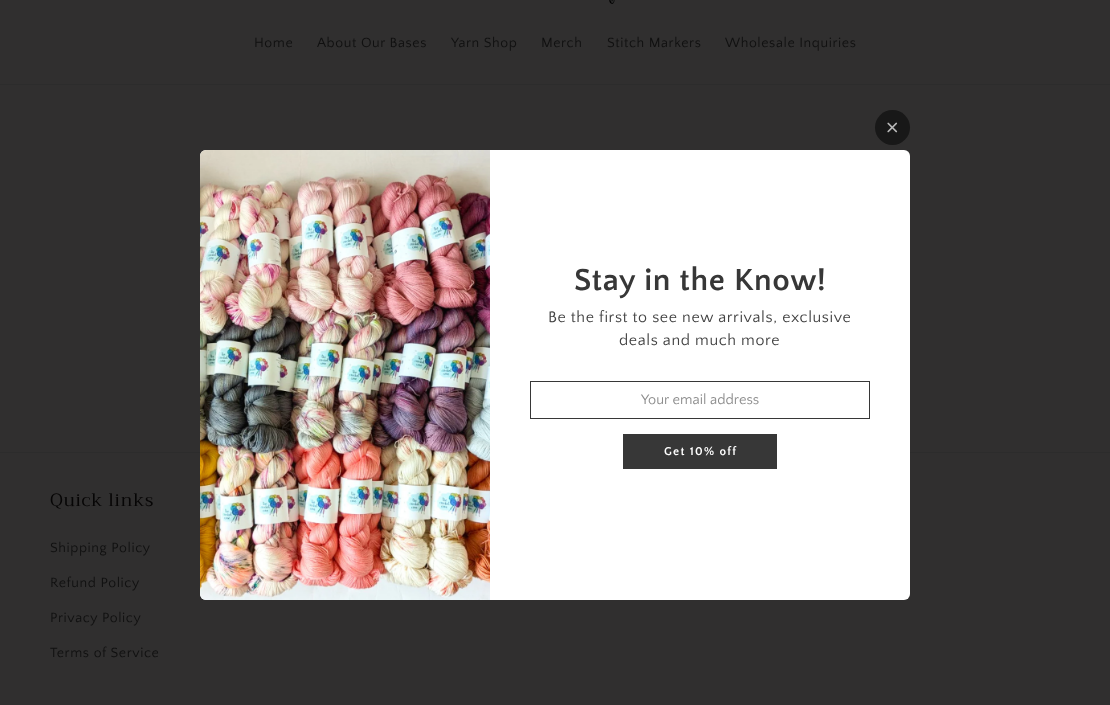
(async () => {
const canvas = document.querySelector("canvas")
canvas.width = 1110
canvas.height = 705
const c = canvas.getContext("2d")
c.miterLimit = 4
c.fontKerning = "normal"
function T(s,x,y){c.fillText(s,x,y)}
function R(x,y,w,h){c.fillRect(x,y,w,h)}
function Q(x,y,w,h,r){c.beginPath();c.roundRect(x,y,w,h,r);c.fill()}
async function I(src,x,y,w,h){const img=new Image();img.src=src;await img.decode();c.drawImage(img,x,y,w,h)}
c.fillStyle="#302f2f"
R(0,0,1110,705)
c.fillStyle="#2c2c2c"
R(0,84,1110,1)
await I("1.png",609,0,6,4)
c.letterSpacing="0.6px"
c.font="14px Quattrocento Sans"
c.fillStyle="#101010"
T("Home",254,47)
T("About Our Bases",317,47)
T("Yarn Shop",451,47)
T("Merch",541,47)
T("Stitch Markers",607,47)
T("Wholesale Inquiries",725,47)
c.fillStyle="#181818"
c.beginPath()
c.arc(892.5,127.5,17.5,0,7)
c.fill()
await I("2.png",887,122,11,11)
c.fillStyle="#2c2c2c"
R(0,452,1110,1)
c.fillStyle="#fff"
Q(200,150,710,450,6)
await I("3.png",200,150,290,450)
c.font="bold 32px Quattrocento Sans"
c.fillStyle="#373737"
T("Stay in the Know!",574,290)
c.font="16px Quattrocento Sans"
c.fillStyle="#424242"
T("Be the first to see new arrivals, exclusive",548,322)
T("deals and much more",619,345)
c.strokeStyle="#373737"
c.strokeRect(530.5,381.5,339,37)
c.letterSpacing="0px"
c.font="14.5px Quattrocento Sans"
c.fillStyle="#8c8c8c"
T("Your email address",641,404)
c.fillStyle="#373737"
R(623,434,154,35)
c.letterSpacing="1.25px"
c.font="bold 12px Quattrocento Sans"
c.fillStyle="#fff"
T("Get 10% off",664,455)
c.letterSpacing="0.6px"
c.font="18px Trirong"
c.fillStyle="#060505"
T("Quick links",50,506)
c.font="14px Quattrocento Sans"
c.fillStyle="#101010"
T("Shipping Policy",50,552)
T("Refund Policy",50,587)
T("Privacy Policy",50,622)
T("Terms of Service",50,657)
})()
